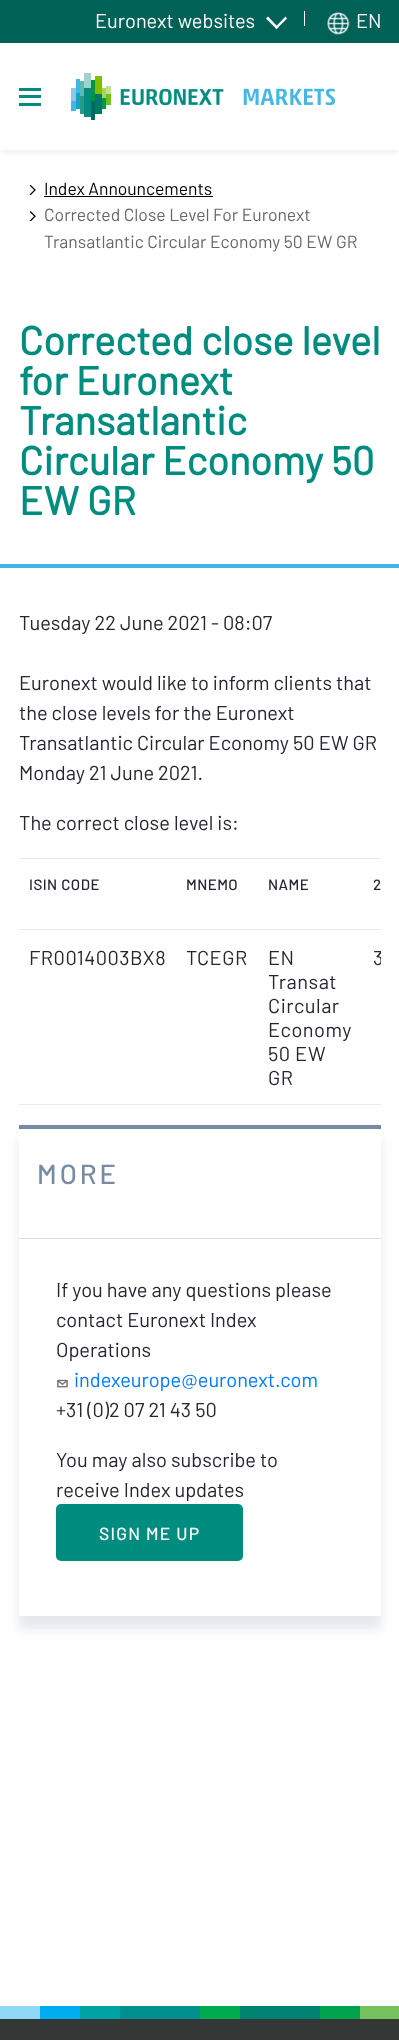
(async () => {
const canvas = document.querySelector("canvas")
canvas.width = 399
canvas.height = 2040
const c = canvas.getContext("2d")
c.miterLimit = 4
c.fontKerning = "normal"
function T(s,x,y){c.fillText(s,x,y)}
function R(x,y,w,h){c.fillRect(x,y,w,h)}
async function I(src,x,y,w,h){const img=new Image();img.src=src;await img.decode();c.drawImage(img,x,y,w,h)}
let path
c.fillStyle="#fff"
R(0,0,399,2040)
c.save()
c.beginPath()
c.rect(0,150,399,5)
c.clip()
c.fillStyle="#0000001a"
c.filter="blur(6px)"
c.beginPath()
c.rect(0,0,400,150)
c.fill()
c.filter="none"
c.restore()
c.fillStyle="#006157"
R(0,0,399,43)
c.fillStyle="#fff"
R(304,11,1,15)
c.font="20px Barlow"
T("Euronext websites",95,28)
path = new Path2D("M285.5 16.5l1.5 2l-10.5 10.5l-1.5-1.5z")
c.fill(path)
path = new Path2D("M268 16.5l10.5 11l-2 1.5l-10.5-10.5z")
c.fill(path)
await I("1.png",327,12,23,23)
T("EN",356,28)
c.fillStyle="#008d7f"
R(19,95,22,3)
R(19,88,22,3)
R(19,103,22,3)
await I("2.png",71,73,264,47)
await I("3.png",29,185,7,10)
c.font="17.5px Barlow"
c.fillStyle="#000"
T("Index Announcements",44,195)
R(44,196,169,1)
await I("4.png",29,211,7,10)
c.fillStyle="#676767"
T("Corrected Close Level For Euronext",44,221)
T("Transatlantic Circular Economy 50 EW GR",44,248)
c.fillStyle="#41b6e6"
R(0,564,399,4)
c.font="bold 40px Barlow"
c.fillStyle="#008d7f"
T("Corrected close level",19,355)
T("for Euronext",19,395)
T("Transatlantic",19,435)
T("Circular Economy 50",19,475)
T("EW GR",19,515)
c.font="20px Barlow"
c.fillStyle="#252631"
T("Tuesday 22 June 2021 - 08:07",19,630)
T("Euronext would like to inform clients that",19,690)
T("the close levels for the Euronext",19,720)
T("Transatlantic Circular Economy 50 EW GR",19,750)
T("Monday 21 June 2021.",19,780)
T("The correct close level is:",19,830)
c.fillStyle="#e8ecef"
R(19,1104,362,1)
c.letterSpacing="0.5px"
c.font="500 15px Barlow"
c.fillStyle="#252631"
T("ISIN CODE",29,890)
T("MNEMO",186,890)
T("NAME",268,890)
c.fillStyle="#e8ecef"
R(19,858,362,1)
c.fillStyle="#252631"
T("2",373,890)
c.font="20px Barlow"
T("FR0014003BX8",29,965)
T("TCEGR",186,965)
T("EN",268,965)
T("Transat",268,989)
T("Circular",268,1013)
T("Economy",268,1037)
T("50 EW",268,1061)
T("GR",268,1085)
c.fillStyle="#e8ecef"
R(19,929,362,1)
c.save()
c.beginPath()
c.rect(19,858,362,267)
c.clip()
c.fillStyle="#252631"
T("3",373,965)
c.restore()
c.save()
path = new Path2D("M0 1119h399v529h-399zm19 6h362v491h-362z")
c.clip(path,"evenodd")
c.fillStyle="#778ca21a"
c.filter="blur(6px)"
c.beginPath()
c.rect(19,1138,362,491)
c.fill()
c.filter="none"
c.restore()
c.fillStyle="#778ca2"
R(19,1125,362,4)
c.save()
path = new Path2D("M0 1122h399v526h-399zm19 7h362v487h-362z")
c.clip(path,"evenodd")
c.fillStyle="#778ca21a"
c.filter="blur(6px)"
c.beginPath()
c.rect(19,1141,362,488)
c.fill()
c.filter="none"
c.restore()
c.fillStyle="#dfdfdf"
R(19,1238,362,1)
c.letterSpacing="3px"
c.font="500 27.5px Barlow"
c.fillStyle="#778ca2"
T("MORE",37,1184)
c.letterSpacing="0px"
c.font="20px Barlow"
c.fillStyle="#252631"
T("If you have any questions please",56,1297)
T("contact Euronext Index",56,1327)
T("Operations",56,1357)
await I("5.png",57,1379,11,9)
c.fillStyle="#007aff"
T("indexeurope@euronext.com",74,1387)
c.fillStyle="#252631"
T("+31 (0)2 07 21 43 50",56,1417)
T("You may also subscribe to",56,1467)
T("receive Index updates",56,1497)
c.fillStyle="#008d7f"
c.beginPath()
c.roundRect(57.5,1505.5,184,54,3.5)
c.fill()
c.strokeStyle="#008d7f"
c.lineWidth=3
c.stroke()
c.letterSpacing="1.25px"
c.font="500 17.5px Barlow"
c.fillStyle="#fff"
T("SIGN ME UP",99,1540)
c.fillStyle="#8fd9f7"
R(0,2006,40,13)
c.fillStyle="#00adf0"
R(40,2006,40,13)
c.fillStyle="#00a3a3"
R(80,2006,40,13)
c.fillStyle="#008f8f"
R(120,2006,80,13)
c.fillStyle="#00ab4f"
R(200,2006,40,13)
c.fillStyle="#008273"
R(240,2006,80,13)
c.fillStyle="#00a34d"
R(320,2006,40,13)
c.fillStyle="#75c25c"
R(360,2006,39,13)
c.fillStyle="#333836"
R(0,2019,399,21)
})()
